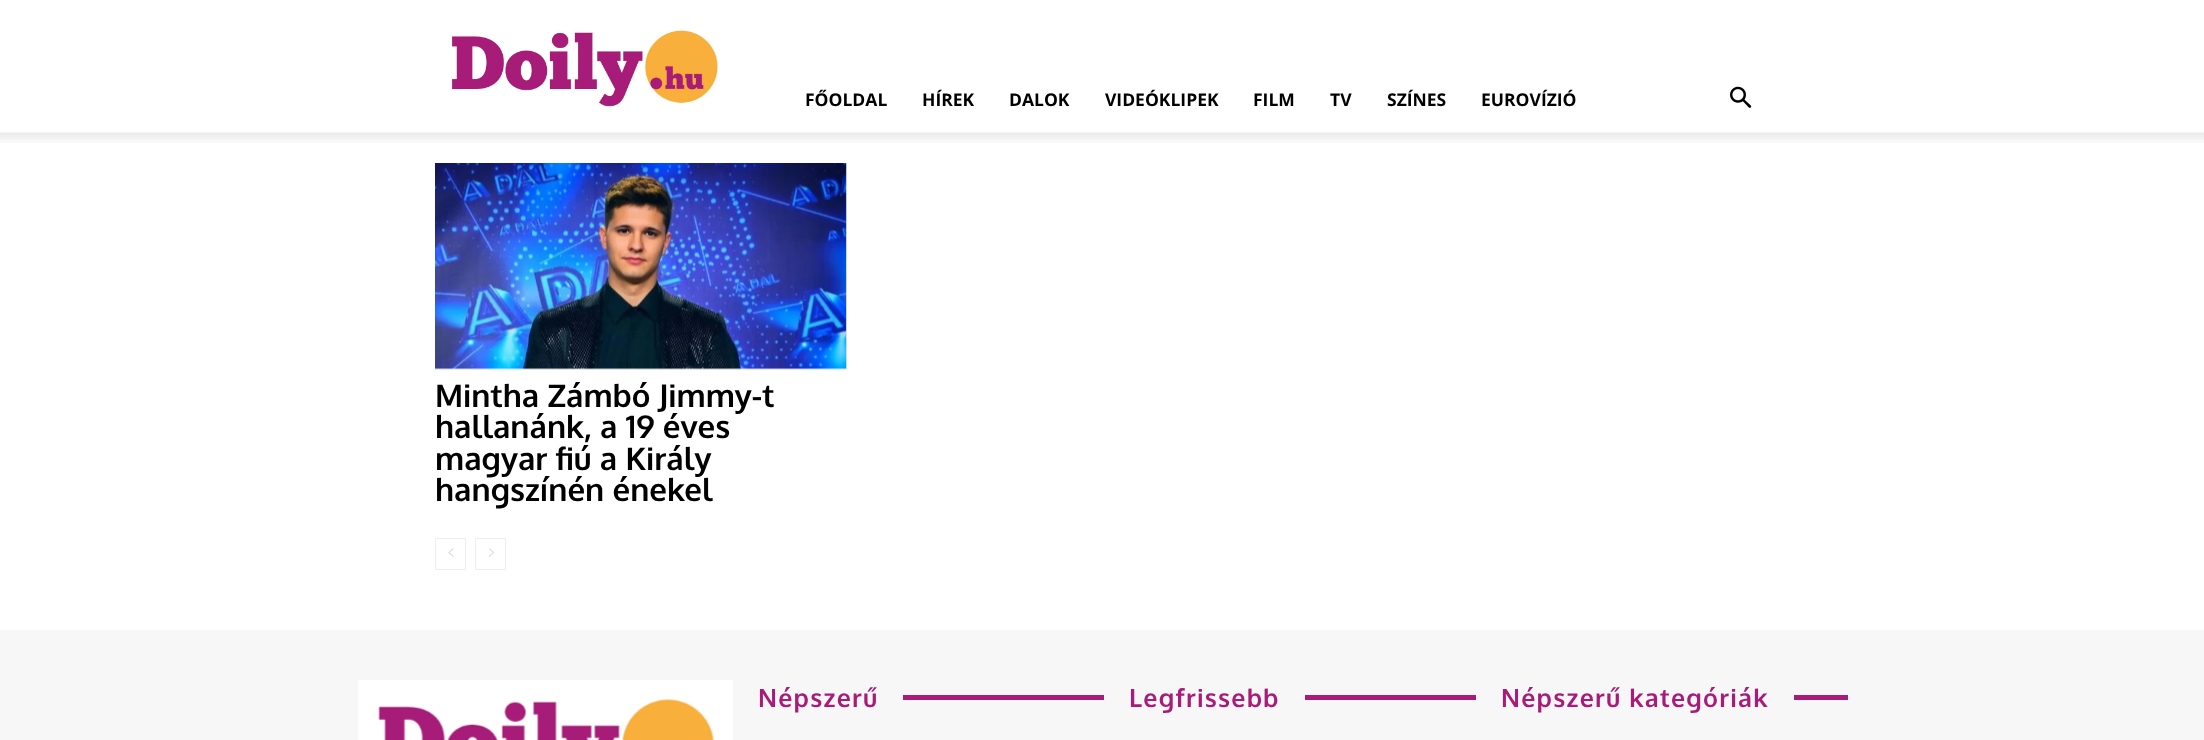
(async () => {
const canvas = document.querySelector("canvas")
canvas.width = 2204
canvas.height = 740
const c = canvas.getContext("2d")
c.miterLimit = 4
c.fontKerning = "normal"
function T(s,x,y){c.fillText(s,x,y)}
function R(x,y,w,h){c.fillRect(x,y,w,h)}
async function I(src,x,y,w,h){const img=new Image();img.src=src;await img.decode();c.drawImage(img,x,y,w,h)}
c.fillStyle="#fff"
R(0,0,2204,740)
await I("1.png",451,29,268,79)
c.font="bold 17.5px Open Sans"
c.fillStyle="#000"
T("FŐOLDAL",805,106)
T("HÍREK",922,106)
T("DALOK",1009,106)
T("VIDEÓKLIPEK",1105,106)
T("FILM",1253,106)
T("TV",1330,106)
T("SZÍNES",1387,106)
T("EUROVÍZIÓ",1481,106)
await I("2.png",1730,86,22,22)
await I("3.png",0,132,2204,11)
await I("4.png",435,163,412,207)
c.font="bold 31.25px Oxygen"
T("Mintha Zámbó Jimmy-t",435,407)
T("hallanánk, a 19 éves",435,438)
T("magyar fiú a Király",435,470)
T("hangszínén énekel",435,501)
c.strokeStyle="#eee"
c.strokeRect(435.5,538.5,30,31)
await I("5.png",448,548,6,9)
c.strokeRect(475.5,538.5,30,31)
await I("6.png",488,548,6,9)
c.fillStyle="#f7f7f7"
R(0,630,2204,110)
await I("7.png",358,680,375,60)
c.letterSpacing="1.25px"
c.font="bold 25px Oxygen"
c.fillStyle="#a81b78"
T("Népszerű",758,707)
R(903,695,201,5)
T("Legfrissebb",1129,707)
R(1305,695,171,5)
T("Népszerű kategóriák",1501,707)
R(1794,695,54,5)
})()
